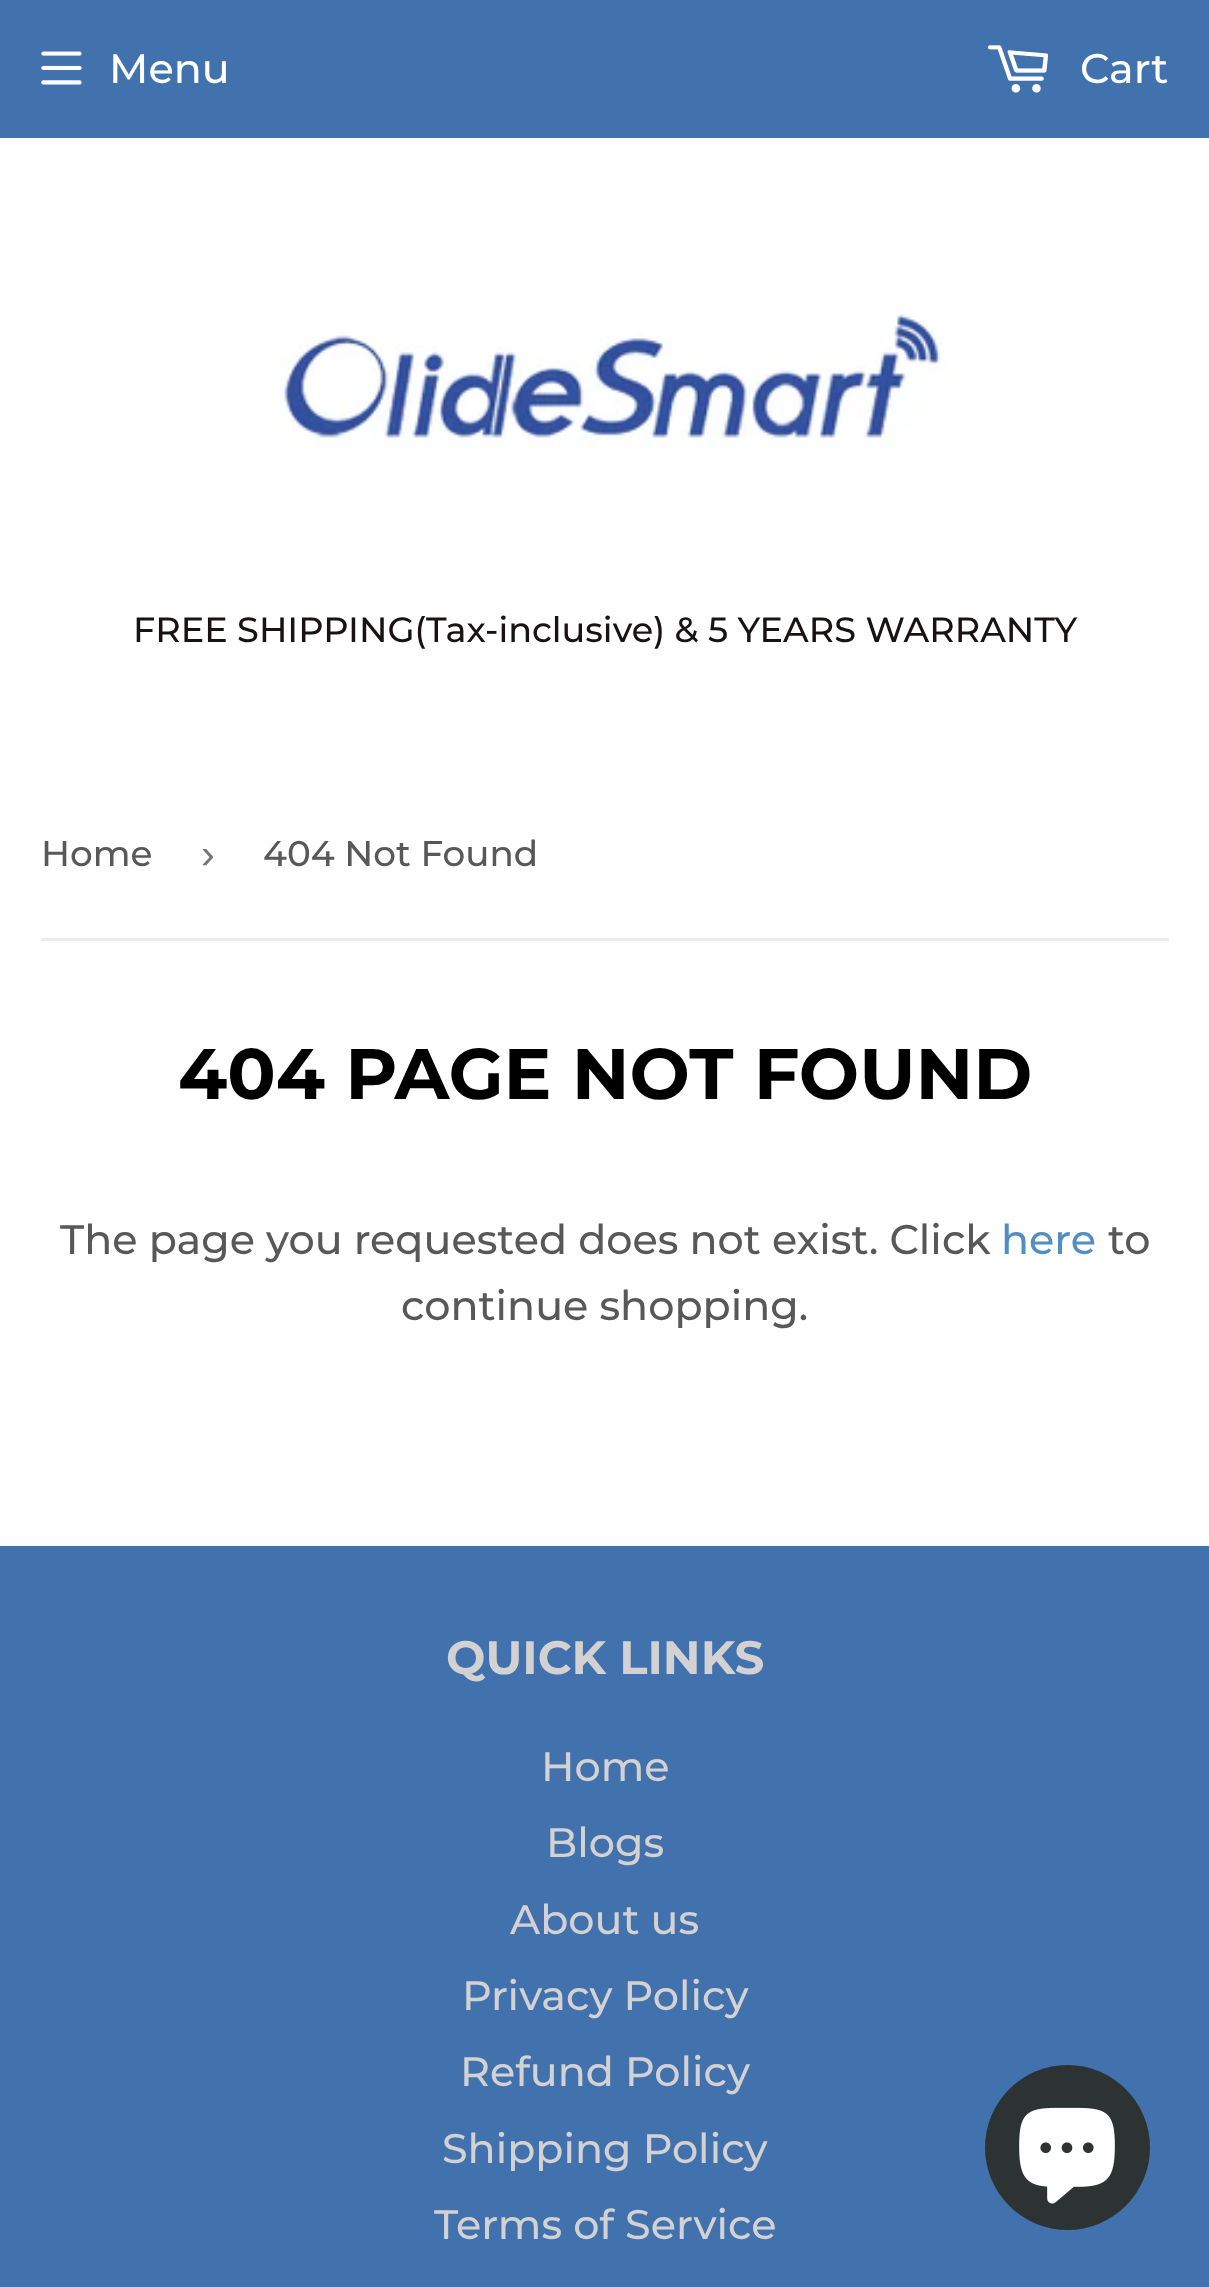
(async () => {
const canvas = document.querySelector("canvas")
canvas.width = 1209
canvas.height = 2287
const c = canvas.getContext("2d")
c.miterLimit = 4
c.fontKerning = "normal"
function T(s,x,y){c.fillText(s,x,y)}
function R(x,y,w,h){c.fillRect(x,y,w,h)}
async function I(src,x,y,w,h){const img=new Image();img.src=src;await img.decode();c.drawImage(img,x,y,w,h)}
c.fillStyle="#fff"
R(0,0,1209,2287)
c.fillStyle="#4172ae"
R(0,0,1209,138)
await I("1.png",41,51,41,34)
c.font="500 41.25px Montserrat"
c.fillStyle="#fff"
T("Menu",109,83)
await I("2.png",987,45,62,48)
T("Cart",1080,83)
await I("3.png",280,309,670,140)
c.font="500 35.05px Montserrat"
c.fillStyle="#181212"
T("FREE SHIPPING(Tax-inclusive) & 5 YEARS WARRANTY",133,642)
c.fillStyle="#ececec"
R(41,938,1128,3)
c.font="500 35.75px Montserrat"
c.fillStyle="#585858"
T("Home",41,866)
c.font="41.25px Liberation Sans"
c.fillStyle="#767676"
T("›",201,868)
c.font="500 35.75px Montserrat"
c.fillStyle="#585858"
T("404 Not Found",263,866)
c.font="bold 71.5px Montserrat"
c.fillStyle="#000"
T("404 PAGE NOT FOUND",178,1099)
c.font="500 41.25px Montserrat"
c.fillStyle="#585858"
T("The page you requested does not exist. Click",60,1254)
c.fillStyle="#528ec1"
T("here",1001,1254)
c.fillStyle="#585858"
T("to",1108,1254)
T("continue shopping.",401,1320)
c.fillStyle="#4172ae"
R(0,1546,1209,741)
c.font="bold 46.75px Montserrat"
c.fillStyle="#d3d1d1"
T("QUICK LINKS",446,1674)
c.font="500 41.25px Montserrat"
T("Home",541,1781)
T("Blogs",546,1857)
T("About us",510,1934)
T("Privacy Policy",462,2010)
T("Refund Policy",460,2086)
T("Shipping Policy",442,2163)
T("Terms of Service",434,2239)
c.fillStyle="#2d3333"
c.beginPath()
c.arc(1067.5,2147.5,82.5,0,7)
c.fill()
await I("4.png",1019,2107,96,97)
})()
